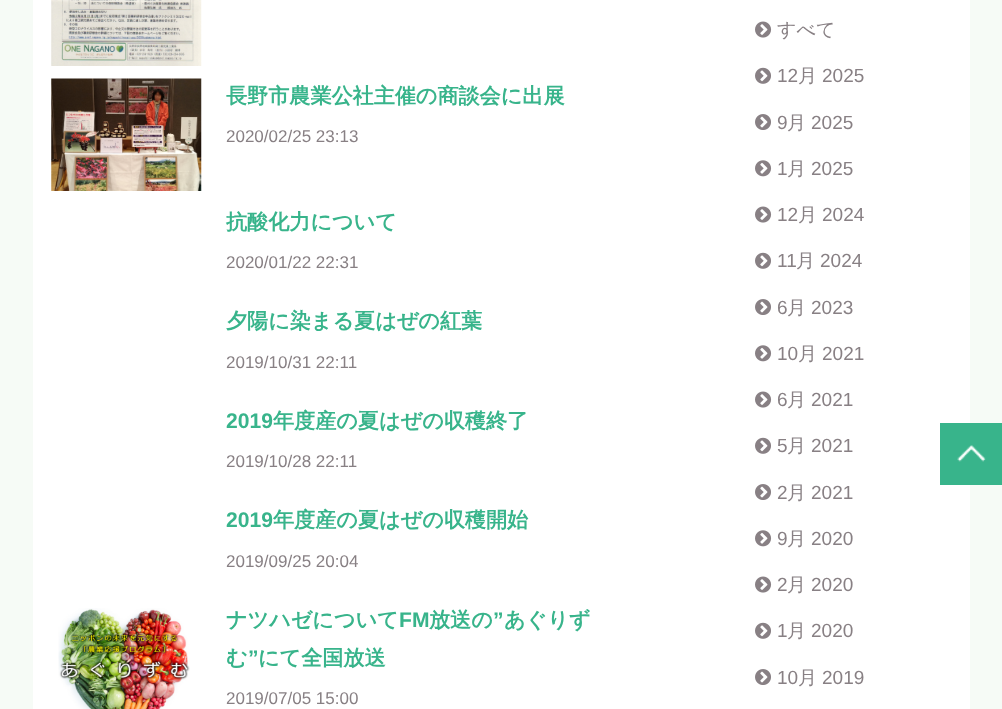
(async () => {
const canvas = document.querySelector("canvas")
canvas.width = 1002
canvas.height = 709
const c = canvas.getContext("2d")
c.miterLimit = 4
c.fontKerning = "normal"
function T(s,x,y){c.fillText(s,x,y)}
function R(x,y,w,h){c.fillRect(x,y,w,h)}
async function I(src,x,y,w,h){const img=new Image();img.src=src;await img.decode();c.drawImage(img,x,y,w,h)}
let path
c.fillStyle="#f6fbf6"
R(0,0,1002,709)
c.fillStyle="#fff"
R(33,0,937,709)
await I("1.png",51,0,151,66)
await I("2.png",51,78,151,113)
c.font="bold 21.1px WenQuanYi Zen Hei"
c.fillStyle="#38b48b"
T("長野市農業公社主催の商談会に出展",226,103)
c.font="17px Liberation Sans"
c.fillStyle="#888084"
T("2020/02/25 23:13",226,142)
c.font="bold 21.1px WenQuanYi Zen Hei"
c.fillStyle="#38b48b"
T("抗酸化力について",226,229)
c.font="17px Liberation Sans"
c.fillStyle="#888084"
T("2020/01/22 22:31",226,268)
c.font="bold 21.1px WenQuanYi Zen Hei"
c.fillStyle="#38b48b"
T("夕陽に染まる夏はぜの紅葉",226,328)
c.font="17px Liberation Sans"
c.fillStyle="#888084"
T("2019/10/31 22:11",226,368)
c.font="bold 21.1px Liberation Sans"
c.fillStyle="#38b48b"
T("2019",226,428)
c.font="bold 21.1px WenQuanYi Zen Hei"
T("年度産の夏はぜの収穫終了",273,428)
c.font="17px Liberation Sans"
c.fillStyle="#888084"
T("2019/10/28 22:11",226,467)
c.font="bold 21.1px Liberation Sans"
c.fillStyle="#38b48b"
T("2019",226,527)
c.font="bold 21.1px WenQuanYi Zen Hei"
T("年度産の夏はぜの収穫開始",273,527)
c.font="17px Liberation Sans"
c.fillStyle="#888084"
T("2019/09/25 20:04",226,567)
await I("3.png",58,608,132,101)
c.font="bold 21.1px WenQuanYi Zen Hei"
c.fillStyle="#38b48b"
T("ナツハゼについて",226,627)
c.font="bold 21.1px Liberation Sans"
T("FM",399,627)
c.font="bold 21.1px WenQuanYi Zen Hei"
T("放送の",429,627)
c.font="bold 21.1px Liberation Sans"
T("”",493,627)
c.font="bold 21.1px WenQuanYi Zen Hei"
T("あぐりず",504,627)
T("む",226,665)
c.font="bold 21.1px Liberation Sans"
T("”",248,665)
c.font="bold 21.1px WenQuanYi Zen Hei"
T("にて全国放送",258,665)
c.font="17px Liberation Sans"
c.fillStyle="#888084"
T("2019/07/05 15:00",226,704)
path = new Path2D("M755-.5h196")
c.strokeStyle="#595857"
c.lineWidth=1.2
c.setLineDash([1.25,1.25])
c.stroke(path)
await I("4.png",755,21,17,17)
c.font="500 19px WenQuanYi Zen Hei"
T("すべて",777,36)
await I("5.png",755,67,16,17)
c.font="19px Liberation Sans"
T("12",777,82)
c.font="500 19px WenQuanYi Zen Hei"
T("月",798,82)
c.font="19px Liberation Sans"
T("2025",822,82)
await I("6.png",755,114,16,16)
T("9",777,129)
c.font="500 19px WenQuanYi Zen Hei"
T("月",787,129)
c.font="19px Liberation Sans"
T("2025",811,129)
await I("7.png",755,160,17,17)
T("1",777,175)
c.font="500 19px WenQuanYi Zen Hei"
T("月",787,175)
c.font="19px Liberation Sans"
T("2025",811,175)
await I("4.png",755,206,17,17)
T("12",777,221)
c.font="500 19px WenQuanYi Zen Hei"
T("月",798,221)
c.font="19px Liberation Sans"
T("2024",822,221)
await I("5.png",755,252,16,17)
T("11",777,267)
c.font="500 19px WenQuanYi Zen Hei"
T("月",796,267)
c.font="19px Liberation Sans"
T("2024",820,267)
await I("6.png",755,299,16,16)
T("6",777,314)
c.font="500 19px WenQuanYi Zen Hei"
T("月",787,314)
c.font="19px Liberation Sans"
T("2023",811,314)
await I("7.png",755,345,17,17)
T("10",777,360)
c.font="500 19px WenQuanYi Zen Hei"
T("月",798,360)
c.font="19px Liberation Sans"
T("2021",822,360)
await I("4.png",755,391,17,17)
T("6",777,406)
c.font="500 19px WenQuanYi Zen Hei"
T("月",787,406)
c.font="19px Liberation Sans"
T("2021",811,406)
await I("5.png",755,437,16,17)
T("5",777,452)
c.font="500 19px WenQuanYi Zen Hei"
T("月",787,452)
c.font="19px Liberation Sans"
T("2021",811,452)
await I("6.png",755,484,16,16)
T("2",777,499)
c.font="500 19px WenQuanYi Zen Hei"
T("月",787,499)
c.font="19px Liberation Sans"
T("2021",811,499)
await I("7.png",755,530,17,17)
T("9",777,545)
c.font="500 19px WenQuanYi Zen Hei"
T("月",787,545)
c.font="19px Liberation Sans"
T("2020",811,545)
await I("4.png",755,576,17,17)
T("2",777,591)
c.font="500 19px WenQuanYi Zen Hei"
T("月",787,591)
c.font="19px Liberation Sans"
T("2020",811,591)
await I("5.png",755,622,16,17)
T("1",777,637)
c.font="500 19px WenQuanYi Zen Hei"
T("月",787,637)
c.font="19px Liberation Sans"
T("2020",811,637)
await I("6.png",755,669,16,16)
T("10",777,684)
c.font="500 19px WenQuanYi Zen Hei"
T("月",798,684)
c.font="19px Liberation Sans"
T("2019",822,684)
c.fillStyle="#38b48b"
R(940,423,62,62)
await I("8.png",957,445,29,17)
})()
